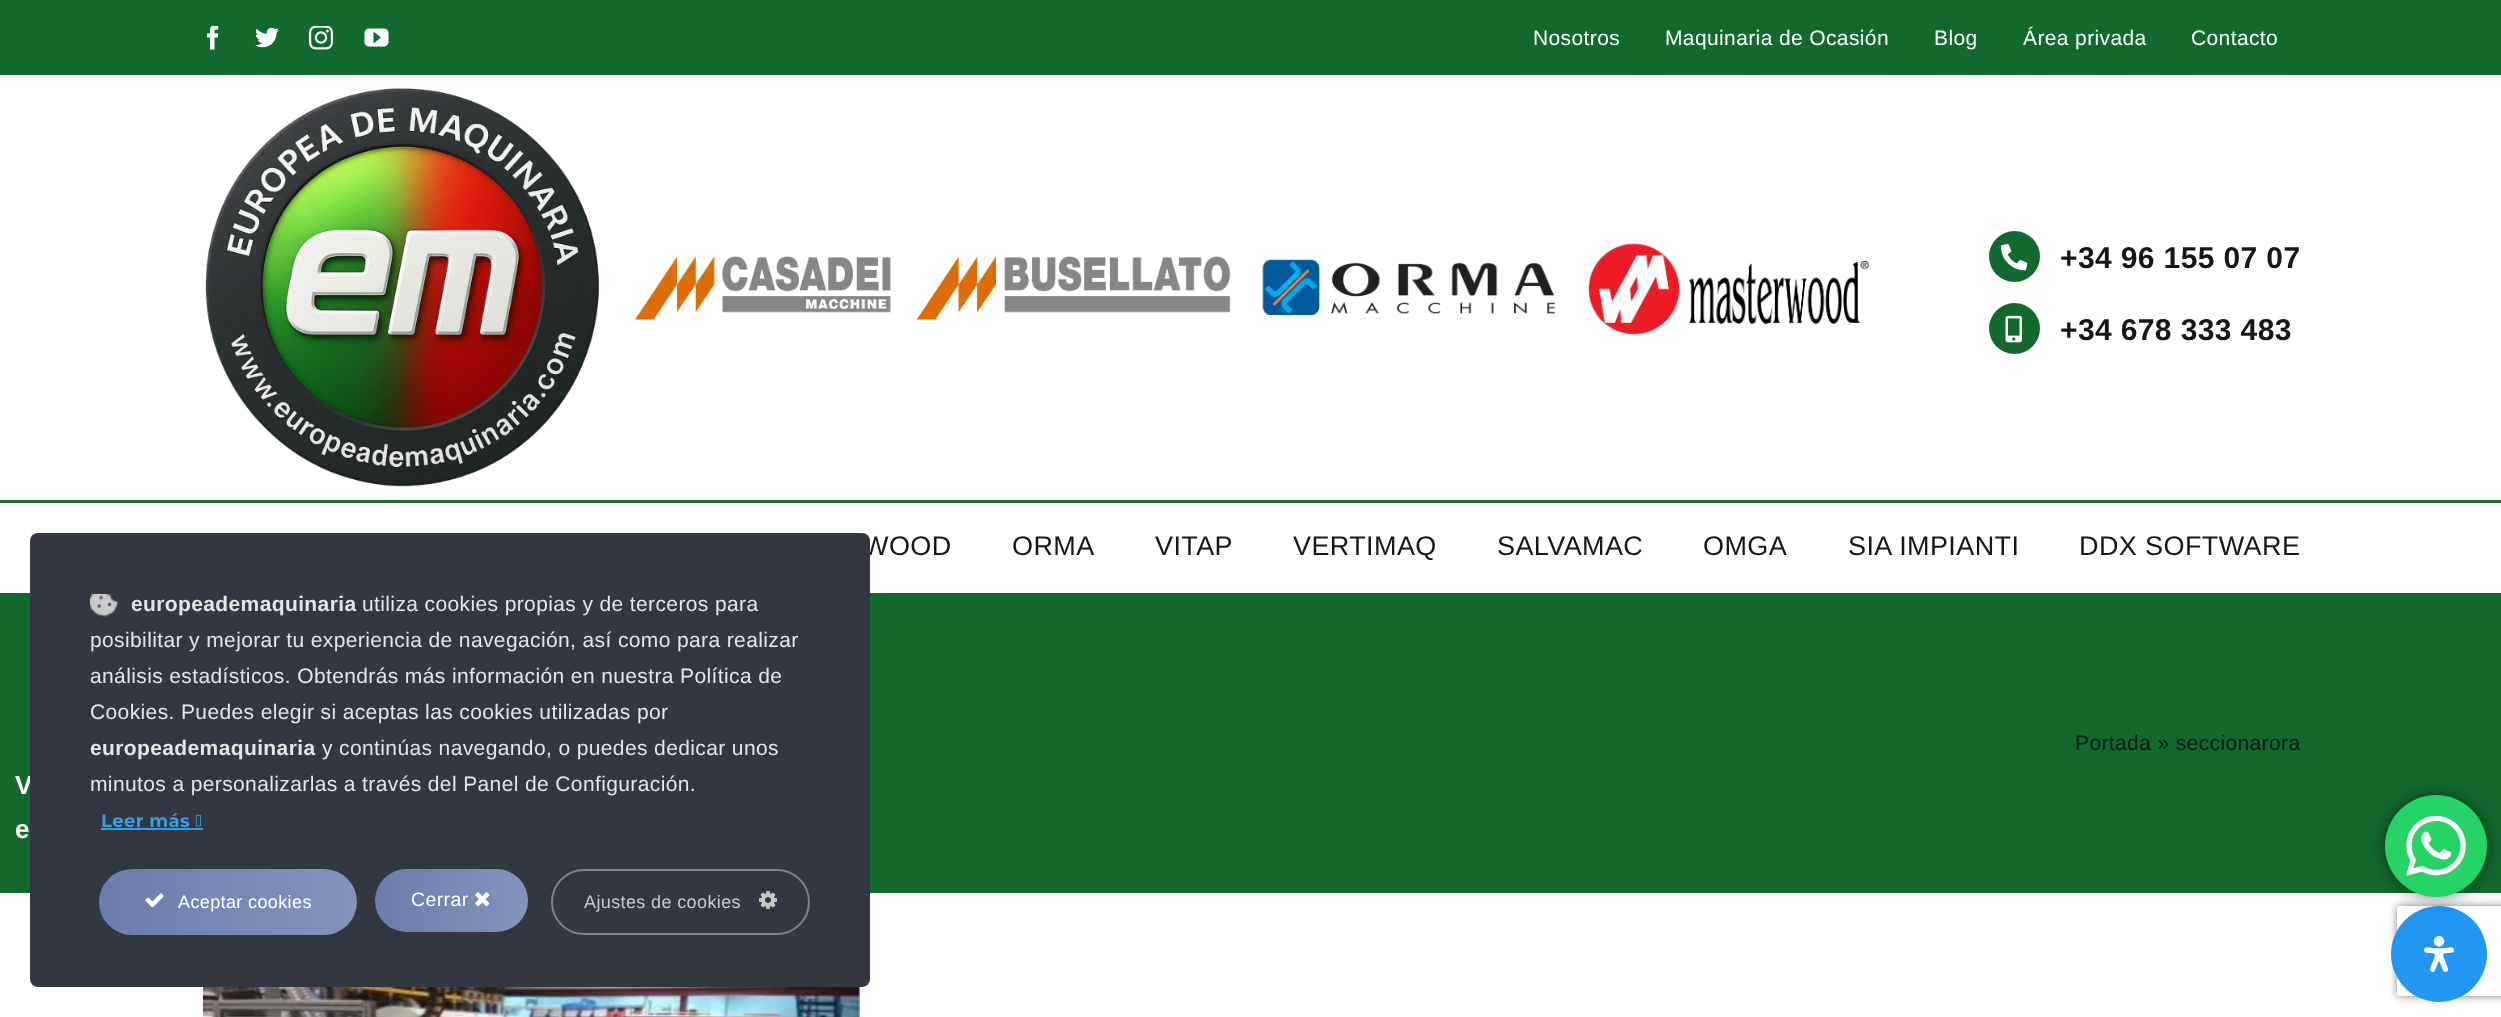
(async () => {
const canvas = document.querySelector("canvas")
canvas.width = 2501
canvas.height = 1017
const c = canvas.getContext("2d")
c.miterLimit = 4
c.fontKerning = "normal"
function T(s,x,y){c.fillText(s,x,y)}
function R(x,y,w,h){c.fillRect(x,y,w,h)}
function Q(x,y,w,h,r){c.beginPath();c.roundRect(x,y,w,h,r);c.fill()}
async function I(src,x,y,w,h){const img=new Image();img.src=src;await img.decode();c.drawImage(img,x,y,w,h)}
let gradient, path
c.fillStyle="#fff"
R(0,0,2501,1017)
c.fillStyle="#11692e"
R(0,593,2501,300)
c.letterSpacing="0.38px"
c.font="bold 26px Liberation Sans"
c.fillStyle="#fff"
T("V",15,794)
T("e",15,838)
c.letterSpacing="0.4px"
c.font="27px Liberation Sans"
c.fillStyle="#141617"
T("WOOD",863,555)
c.fillStyle="#323742"
Q(30,533,840,454,8)
await I("1.png",90,594,29,23)
c.letterSpacing="0.38px"
c.font="bold 21px Liberation Sans"
c.fillStyle="#e5e5e5"
T("europeademaquinaria",131,611)
c.font="21px Liberation Sans"
T("utiliza cookies propias y de terceros para",362,611)
T("posibilitar y mejorar tu experiencia de navegación, así como para realizar",90,647)
T("análisis estadísticos. Obtendrás más información en nuestra Política de",90,683)
T("Cookies. Puedes elegir si aceptas las cookies utilizadas por",90,719)
c.font="bold 21px Liberation Sans"
T("europeademaquinaria",90,755)
c.font="21px Liberation Sans"
T("y continúas navegando, o puedes dedicar unos",322,755)
T("minutos a personalizarlas a través del Panel de Configuración.",90,791)
c.font="bold 18px Montserrat"
c.fillStyle="#369ee3"
T("Leer más",101,827)
R(101,828,102,2)
await I("2.png",195,814,6,13)
gradient = c.createLinearGradient(99,902,357,902)
gradient.addColorStop(0,"#6b7dac")
gradient.addColorStop(1,"#8393bc")
c.fillStyle = gradient
Q(99,869,258,66,33)
await I("3.png",145,893,19,15)
c.font="18px Liberation Sans"
c.fillStyle="#fff"
T("Aceptar cookies",178,908)
gradient = c.createLinearGradient(375,900,528,900)
gradient.addColorStop(0,"#6b7dac")
gradient.addColorStop(1,"#8393bc")
c.fillStyle = gradient
Q(375,869,153,63,31.5)
c.font="19.5px Liberation Sans"
c.fillStyle="#fff"
T("Cerrar",411,906)
await I("4.png",475,892,15,15)
c.beginPath()
c.roundRect(552,870,257,64,32)
c.strokeStyle="#808181"
c.lineWidth=2
c.stroke()
c.font="18px Liberation Sans"
c.fillStyle="#cacaca"
T("Ajustes de cookies",584,908)
await I("5.png",759,891,18,18)
c.save()
path = new Path2D("M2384 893h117v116h-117zm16 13h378c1.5 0 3 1.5 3 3v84c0 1.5-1.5 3-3 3h-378c-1.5 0-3-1.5-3-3v-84c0-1.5 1.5-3 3-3z")
c.clip(path,"evenodd")
c.fillStyle="#808080"
c.filter="blur(4px)"
c.beginPath()
c.roundRect(2397,906,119,90,3)
c.fill()
c.filter="none"
c.restore()
c.fillStyle="#2196f3"
c.beginPath()
c.arc(2439,954,48,0,7)
c.fill()
c.fillStyle="#00000080"
c.filter="blur(8px)"
c.beginPath()
c.roundRect(2385,795,102,102,51)
c.fill()
c.filter="none"
c.fillStyle="#25d366"
c.beginPath()
c.arc(2436,846,51,0,7)
c.fill()
await I("6.png",2406,816,60,60)
await I("7.png",2423,936,32,36)
c.fillStyle="#11692e"
R(0,0,2501,75)
await I("8.png",207,26,12,24)
await I("9.png",255,27,24,21)
await I("10.png",309,26,24,24)
await I("11.png",364,28,25,19)
c.font="21px Liberation Sans"
c.fillStyle="#fff"
T("Nosotros",1533,45)
T("Maquinaria de Ocasión",1665,45)
T("Blog",1934,45)
T("Área privada",2023,45)
T("Contacto",2191,45)
await I("12.png",205,88,395,399)
await I("13.png",635,256,596,64)
await I("14.png",1262,259,293,56)
await I("15.png",1588,243,282,92)
c.fillStyle="#11692e"
c.beginPath()
c.arc(2014.5,256.5,25.5,0,7)
c.fill()
await I("16.png",2001,243,27,28)
c.font="bold 30px Liberation Sans"
c.fillStyle="#141617"
T("+34 96 155 07 07",2060,268)
c.fillStyle="#11692e"
c.beginPath()
c.arc(2014.5,328.5,25.5,0,7)
c.fill()
await I("17.png",2005,315,17,28)
c.fillStyle="#141617"
T("+34 678 333 483",2060,340)
c.fillStyle="#11692e"
R(0,500,2501,3)
c.letterSpacing="0.4px"
c.font="27px Liberation Sans"
c.fillStyle="#141617"
T("ORMA",1012,555)
T("VITAP",1155,555)
T("VERTIMAQ",1293,555)
T("SALVAMAC",1497,555)
T("OMGA",1703,555)
T("SIA IMPIANTI",1848,555)
T("DDX SOFTWARE",2079,555)
c.letterSpacing="0.38px"
c.font="21px Liberation Sans"
T("Portada » seccionarora",2075,750)
c.fillStyle="#f9f9fb"
R(860,987,2,30)
R(201,987,2,30)
c.fillStyle="#d8d8d8"
R(858,987,2,30)
await I("18.png",203,987,657,30)
})()
